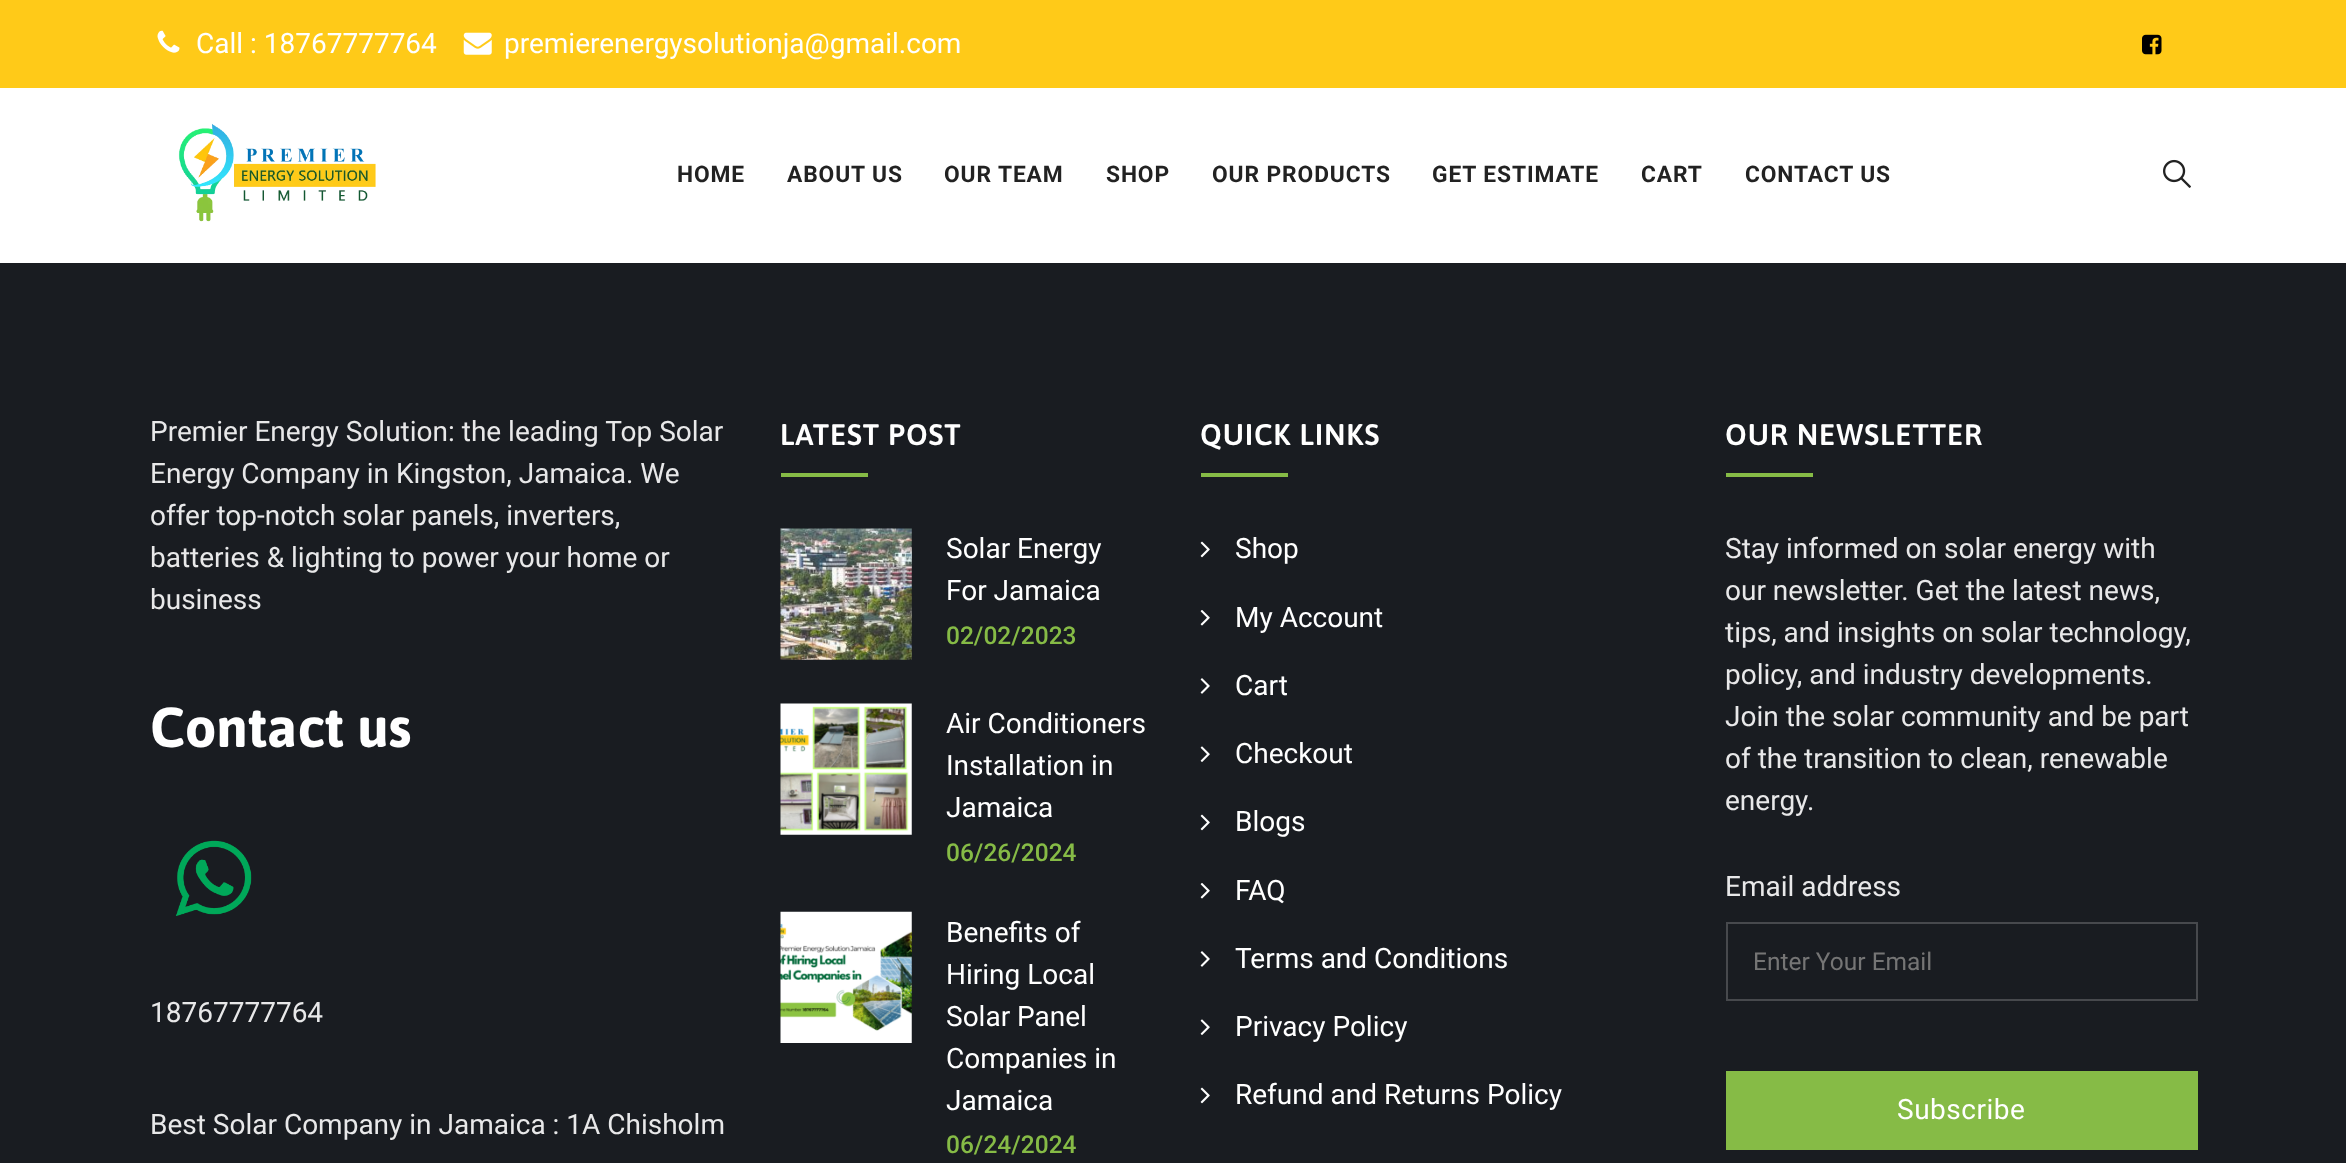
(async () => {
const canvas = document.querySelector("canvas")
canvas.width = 2346
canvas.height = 1163
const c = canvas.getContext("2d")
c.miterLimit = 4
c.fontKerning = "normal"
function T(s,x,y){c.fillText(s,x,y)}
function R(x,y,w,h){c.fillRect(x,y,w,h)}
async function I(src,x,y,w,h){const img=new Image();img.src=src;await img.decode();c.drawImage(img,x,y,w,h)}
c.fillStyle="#fff"
R(0,0,2346,1163)
c.fillStyle="#ffca18"
R(0,0,2346,88)
await I("1.png",157,30,23,23)
c.font="28px Roboto"
c.fillStyle="#fff"
T("Call : 18767777764",196,53)
await I("2.png",463,32,29,23)
T("premierenergysolutionja@gmail.com",504,53)
await I("3.png",2142,34,20,21)
await I("4.png",178,123,198,99)
c.letterSpacing="0.9px"
c.font="bold 22.75px Roboto"
c.fillStyle="#222"
T("HOME",677,182)
T("ABOUT US",787,182)
T("OUR TEAM",944,182)
T("SHOP",1106,182)
T("OUR PRODUCTS",1212,182)
T("GET ESTIMATE",1432,182)
T("CART",1641,182)
T("CONTACT US",1745,182)
await I("5.png",2163,159,28,29)
c.fillStyle="#191c21"
R(0,263,2346,900)
c.letterSpacing="0px"
c.font="28px Roboto"
c.fillStyle="#e8e8e9"
T("Premier Energy Solution: the leading Top Solar",150,441)
T("Energy Company in Kingston, Jamaica. We",150,483)
T("offer top-notch solar panels, inverters,",150,525)
T("batteries & lighting to power your home or",150,567)
T("business",150,609)
c.font="bold 56px Asap"
c.fillStyle="#fff"
T("Contact us",150,747)
await I("6.png",175,840,77,76)
c.font="28px Roboto"
c.fillStyle="#e8e8e9"
T("18767777764",150,1022)
T("Best Solar Company in Jamaica : 1A Chisholm",150,1134)
c.letterSpacing="0.9px"
c.font="600 29.75px Asap"
c.fillStyle="#fff"
T("LATEST POST",780,445)
c.fillStyle="#86bb46"
R(781,473,87,4)
await I("7.png",780,528,132,132)
c.letterSpacing="0px"
c.font="28px Roboto"
c.fillStyle="#fff"
T("Solar Energy",946,558)
T("For Jamaica",946,600)
c.font="500 24.5px Roboto"
c.fillStyle="#86bb46"
T("02/02/2023",946,644)
await I("8.png",780,703,132,132)
c.font="28px Roboto"
c.fillStyle="#fff"
T("Air Conditioners",946,733)
T("Installation in",946,775)
T("Jamaica",946,817)
c.font="500 24.5px Roboto"
c.fillStyle="#86bb46"
T("06/26/2024",946,861)
await I("9.png",780,911,132,132)
c.font="28px Roboto"
c.fillStyle="#fff"
T("Benefits of",946,942)
T("Hiring Local",946,984)
T("Solar Panel",946,1026)
T("Companies in",946,1068)
T("Jamaica",946,1110)
c.font="500 24.5px Roboto"
c.fillStyle="#86bb46"
T("06/24/2024",946,1153)
c.letterSpacing="0.9px"
c.font="600 29.75px Asap"
c.fillStyle="#fff"
T("QUICK LINKS",1200,445)
c.fillStyle="#86bb46"
R(1201,473,87,4)
await I("10.png",1200,541,10,17)
c.letterSpacing="0px"
c.font="28px Roboto"
c.fillStyle="#fff"
T("Shop",1235,558)
await I("11.png",1200,610,10,16)
T("My Account",1235,627)
await I("12.png",1200,678,10,16)
T("Cart",1235,695)
await I("13.png",1200,746,10,16)
T("Checkout",1235,763)
await I("10.png",1200,814,10,17)
T("Blogs",1235,831)
await I("11.png",1200,883,10,16)
T("FAQ",1235,900)
await I("12.png",1200,951,10,16)
T("Terms and Conditions",1235,968)
await I("13.png",1200,1019,10,16)
T("Privacy Policy",1235,1036)
await I("10.png",1200,1087,10,17)
T("Refund and Returns Policy",1235,1104)
c.letterSpacing="0.9px"
c.font="600 29.75px Asap"
T("OUR NEWSLETTER",1725,445)
c.fillStyle="#86bb46"
R(1726,473,87,4)
c.letterSpacing="0px"
c.font="28px Roboto"
c.fillStyle="#e8e8e9"
T("Stay informed on solar energy with",1725,558)
T("our newsletter. Get the latest news,",1725,600)
T("tips, and insights on solar technology,",1725,642)
T("policy, and industry developments.",1725,684)
T("Join the solar community and be part",1725,726)
T("of the transition to clean, renewable",1725,768)
T("energy.",1725,810)
T("Email address",1725,896)
c.strokeStyle="#47494d"
c.lineWidth=2
c.strokeRect(1727,923,470,77)
c.font="24.5px Roboto"
c.fillStyle="#757575"
T("Enter Your Email",1753,970)
c.fillStyle="#86bb46"
R(1726,1071,472,79)
c.letterSpacing="0.5px"
c.font="28px Roboto"
c.fillStyle="#fff"
T("Subscribe",1897,1119)
})()
